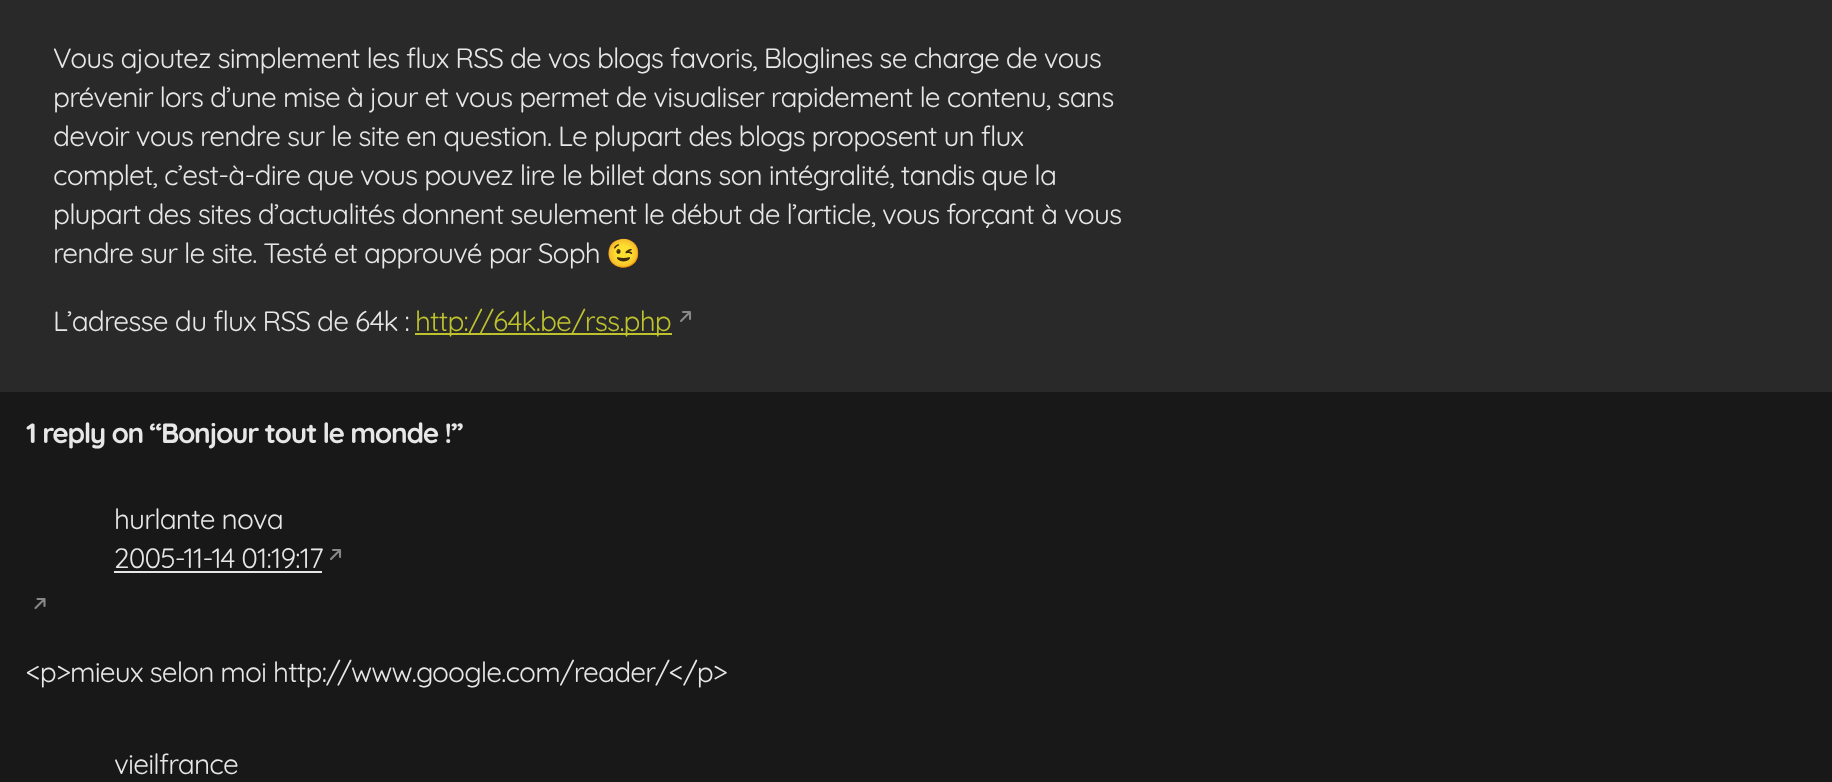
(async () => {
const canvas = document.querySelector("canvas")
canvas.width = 1832
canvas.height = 782
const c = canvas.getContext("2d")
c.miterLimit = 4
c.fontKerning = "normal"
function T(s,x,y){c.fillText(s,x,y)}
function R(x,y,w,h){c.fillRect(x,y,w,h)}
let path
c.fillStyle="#181818"
R(0,0,1832,782)
c.fillStyle="#292929"
R(0,0,1832,392)
c.letterSpacing="-0.83px"
c.font="28px Quicksand"
c.fillStyle="#e7e7e7"
T("Vous ajoutez simplement les flux RSS de vos blogs favoris, Bloglines se charge de vous",53,68)
T("prévenir lors d’une mise à jour et vous permet de visualiser rapidement le contenu, sans",53,107)
T("devoir vous rendre sur le site en question. Le plupart des blogs proposent un flux",53,146)
T("complet, c’est-à-dire que vous pouvez lire le billet dans son intégralité, tandis que la",53,185)
T("plupart des sites d’actualités donnent seulement le début de l’article, vous forçant à vous",53,224)
T("rendre sur le site. Testé et approuvé par Soph",53,263)
c.font="28px Noto Color Emoji"
T("😉",606,263)
c.font="28px Quicksand"
T("L’adresse du flux RSS de 64k :",53,331)
c.fillStyle="#bec32d"
R(415,333,257,2)
T("http://64k.be/rss.php",415,331)
path = new Path2D("M681 321l9-9m0 0h-7m7 0v7")
c.strokeStyle="#888"
c.lineWidth=2.1
c.lineCap="round"
c.lineJoin="round"
c.stroke(path)
c.letterSpacing="-1.3px"
c.font="bold 28px Quicksand"
c.fillStyle="#e7e7e7"
T("1 reply on “Bonjour tout le monde !”",26,443)
c.letterSpacing="-0.83px"
c.font="28px Quicksand"
T("hurlante nova",114,529)
T("2005-11-14 01:19:17",114,568)
R(114,571,208,2)
path = new Path2D("M331 559l9-9m0 0h-7m7 0v7")
c.stroke(path)
path = new Path2D("M35.5 608l9-9m0 0h-7m7 0v7")
c.stroke(path)
T("<p>mieux selon moi http://www.google.com/reader/<\/p>",26,682)
T("vieilfrance",114,774)
})()
